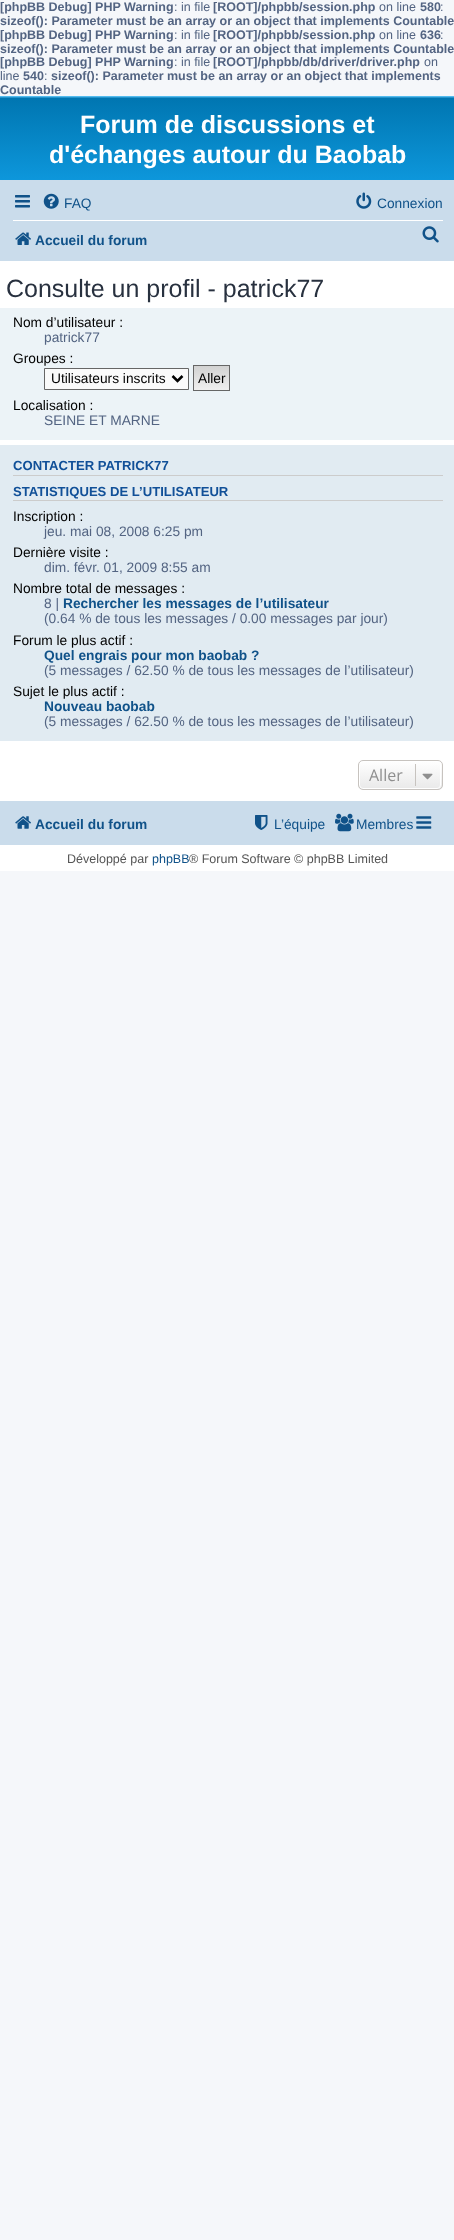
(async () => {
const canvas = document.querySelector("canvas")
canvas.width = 454
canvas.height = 2240
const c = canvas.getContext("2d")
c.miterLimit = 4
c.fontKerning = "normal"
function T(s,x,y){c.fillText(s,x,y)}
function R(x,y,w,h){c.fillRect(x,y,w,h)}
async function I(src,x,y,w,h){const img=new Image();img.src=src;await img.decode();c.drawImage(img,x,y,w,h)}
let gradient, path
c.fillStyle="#f5f7fa"
R(0,0,454,2240)
c.font="bold 12.5px Liberation Sans"
c.fillStyle="#536482"
T("[phpBB Debug] PHP Warning",0,11)
c.font="12.5px Liberation Sans"
T(": in file",174,11)
c.font="bold 12.5px Liberation Sans"
T("[ROOT]/phpbb/session.php",213,11)
c.font="12.5px Liberation Sans"
T("on line",379,11)
c.font="bold 12.5px Liberation Sans"
T("580",420,11)
c.font="12.5px Liberation Sans"
T(":",440,11)
c.font="bold 12.5px Liberation Sans"
T("sizeof(): Parameter must be an array or an object that implements Countable",0,25)
T("[phpBB Debug] PHP Warning",0,39)
c.font="12.5px Liberation Sans"
T(": in file",174,39)
c.font="bold 12.5px Liberation Sans"
T("[ROOT]/phpbb/session.php",213,39)
c.font="12.5px Liberation Sans"
T("on line",379,39)
c.font="bold 12.5px Liberation Sans"
T("636",420,39)
c.font="12.5px Liberation Sans"
T(":",440,39)
c.font="bold 12.5px Liberation Sans"
T("sizeof(): Parameter must be an array or an object that implements Countable",0,53)
T("[phpBB Debug] PHP Warning",0,66)
c.font="12.5px Liberation Sans"
T(": in file",174,66)
c.font="bold 12.5px Liberation Sans"
T("[ROOT]/phpbb/db/driver/driver.php",213,66)
c.font="12.5px Liberation Sans"
T("on",424,66)
T("line",0,80)
c.font="bold 12.5px Liberation Sans"
T("540",23,80)
c.font="12.5px Liberation Sans"
T(":",44,80)
c.font="bold 12.5px Liberation Sans"
T("sizeof(): Parameter must be an array or an object that implements",51,80)
T("Countable",0,94)
c.fillStyle="#fff"
R(0,261,454,610)
gradient = c.createLinearGradient(228,96,228,211)
gradient.addColorStop(0,"#6aceff")
gradient.addColorStop(.02,"#0076b1")
gradient.addColorStop(1,"#12a3eb")
c.fillStyle = gradient
R(0,96,454,84)
c.font="bold 25px Liberation Sans"
c.fillStyle="#fff"
T("Forum de discussions et",80,133)
T("d'échanges autour du Baobab",49,163)
c.fillStyle="#cadceb"
R(0,180,454,81)
await I("1.png",15,195,15,13)
await I("2.png",43,193,16,16)
c.font="13.75px Liberation Sans"
c.fillStyle="#105289"
T("FAQ",64,208)
await I("3.png",356,192,16,17)
T("Connexion",377,208)
c.fillStyle="#fff"
R(13,220,430,1)
await I("4.png",15,232,16,13)
c.font="bold 13.75px Liberation Sans"
c.fillStyle="#105289"
T("Accueil du forum",35,245)
await I("5.png",422,226,17,17)
c.font="25px Liberation Sans"
c.fillStyle="#28313f"
T("Consulte un profil - patrick77",6,297)
c.fillStyle="#ecf3f7"
R(0,308,454,132)
c.font="13.75px Liberation Sans"
c.fillStyle="#000"
T("Nom d’utilisateur :",13,327)
c.fillStyle="#536482"
T("patrick77",44,342)
c.fillStyle="#000"
T("Groupes :",13,363)
c.fillStyle="#fafafa"
c.beginPath()
c.rect(44.5,368.5,144,21)
c.fill()
c.strokeStyle="#666"
c.stroke()
path = new Path2D("M172.5 376l5 5l5-5")
c.strokeStyle="#000"
c.lineWidth=2.5
c.stroke(path)
c.fillStyle="#000"
T("Utilisateurs inscrits",51,383)
gradient = c.createLinearGradient(211,366,211,390)
gradient.addColorStop(0,"#d2d2d2")
gradient.addColorStop(1,"#efefef")
c.fillStyle = gradient
R(194,366,35,24)
c.strokeStyle="#666"
c.lineWidth=1
c.strokeRect(193.5,365.5,36,25)
c.fillStyle="#000"
T("Aller",198,383)
T("Localisation :",13,410)
c.fillStyle="#536482"
T("SEINE ET MARNE",44,425)
c.fillStyle="#e1ebf2"
R(0,445,454,296)
c.fillStyle="#ccc"
R(13,475,430,1)
c.font="bold 13.1px Liberation Sans"
c.fillStyle="#115098"
T("CONTACTER PATRICK77",13,470)
c.fillStyle="#ccc"
R(13,500,430,1)
c.fillStyle="#115098"
T("STATISTIQUES DE L’UTILISATEUR",13,496)
c.font="13.75px Liberation Sans"
c.fillStyle="#000"
T("Inscription :",13,521)
c.fillStyle="#536482"
T("jeu. mai 08, 2008 6:25 pm",44,536)
c.fillStyle="#000"
T("Dernière visite :",13,557)
c.fillStyle="#536482"
T("dim. févr. 01, 2009 8:55 am",44,572)
c.fillStyle="#000"
T("Nombre total de messages :",13,593)
c.fillStyle="#536482"
T("8 |",44,608)
c.font="bold 13.75px Liberation Sans"
c.fillStyle="#105289"
T("Rechercher les messages de l’utilisateur",63,608)
c.font="13.75px Liberation Sans"
c.fillStyle="#536482"
T("(0.64 % de tous les messages / 0.00 messages par jour)",44,623)
c.fillStyle="#000"
T("Forum le plus actif :",13,645)
c.font="bold 13.75px Liberation Sans"
c.fillStyle="#105289"
T("Quel engrais pour mon baobab ?",44,660)
c.font="13.75px Liberation Sans"
c.fillStyle="#536482"
T("(5 messages / 62.50 % de tous les messages de l’utilisateur)",44,675)
c.fillStyle="#000"
T("Sujet le plus actif :",13,696)
c.font="bold 13.75px Liberation Sans"
c.fillStyle="#105289"
T("Nouveau baobab",44,711)
c.font="13.75px Liberation Sans"
c.fillStyle="#536482"
T("(5 messages / 62.50 % de tous les messages de l’utilisateur)",44,726)
c.save()
c.beginPath()
c.roundRect(358,760,85,30,5)
c.clip()
gradient = c.createLinearGradient(400,761,400,789)
gradient.addColorStop(0,"#fff")
gradient.addColorStop(1,"#e9e9e9")
c.fillStyle = gradient
R(358,761,85,28)
c.restore()
c.beginPath()
c.roundRect(359.5,761.5,81,27,3.5)
c.strokeStyle="#fff"
c.stroke()
c.beginPath()
c.roundRect(358.5,760.5,84,29,4.5)
c.strokeStyle="#c7c3bf"
c.stroke()
c.font="16px Open Sans"
c.fillStyle="#8f8f8f"
T("Aller",369,781)
c.fillStyle="#c7c3bf"
R(415,764,1,22)
await I("6.png",422,773,11,7)
c.fillStyle="#cadceb"
R(0,801,454,44)
await I("7.png",15,816,16,13)
c.font="bold 13.75px Liberation Sans"
c.fillStyle="#105289"
T("Accueil du forum",35,829)
await I("8.png",255,815,13,15)
c.font="13.75px Liberation Sans"
T("L’équipe",274,829)
await I("9.png",335,813,19,19)
T("Membres",356,829)
await I("10.png",416,816,16,13)
c.font="12.5px Liberation Sans"
c.fillStyle="#555"
T("Développé par",67,863)
c.fillStyle="#105289"
T("phpBB",152,863)
c.fillStyle="#555"
T("® Forum Software © phpBB Limited",189,863)
})()
